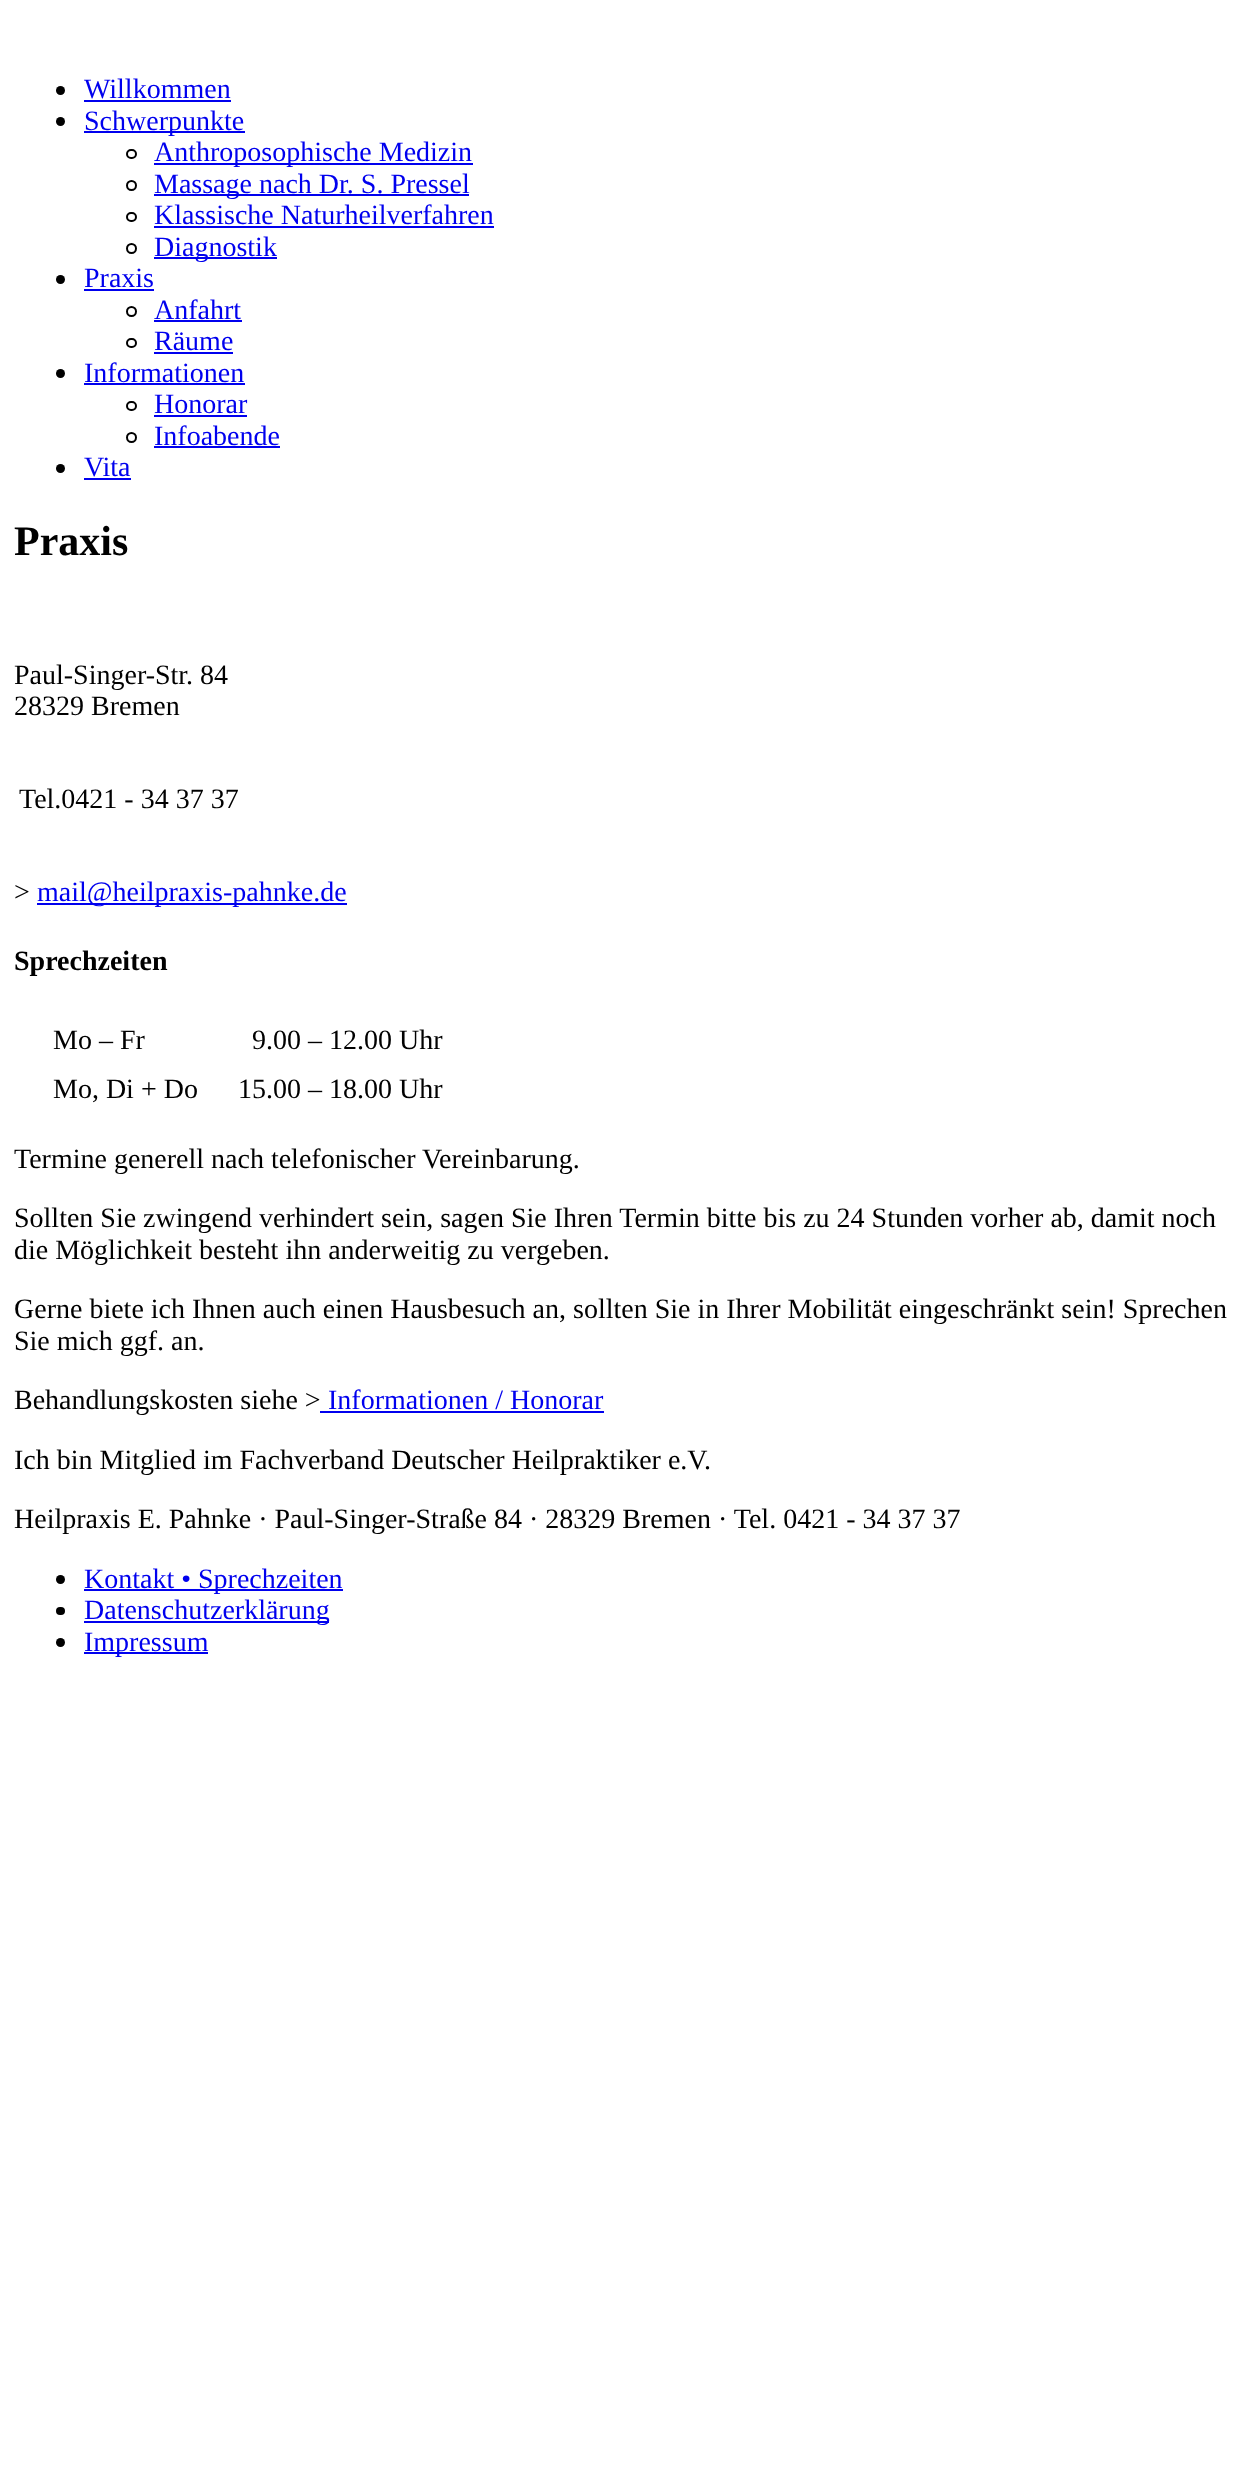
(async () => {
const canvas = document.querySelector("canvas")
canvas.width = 1251
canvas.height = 2483
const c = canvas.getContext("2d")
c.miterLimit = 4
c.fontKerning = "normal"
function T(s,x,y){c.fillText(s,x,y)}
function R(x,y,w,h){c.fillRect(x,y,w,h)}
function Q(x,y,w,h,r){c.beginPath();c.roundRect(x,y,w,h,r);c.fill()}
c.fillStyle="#fff"
R(0,0,1251,2483)
c.fillStyle="#000"
c.beginPath()
c.arc(60.5,90.5,4.5,0,7)
c.fill()
c.font="28px Liberation Serif"
c.fillStyle="#00e"
T("Willkommen",84,98)
R(84,100,147,2)
c.fillStyle="#000"
c.beginPath()
c.arc(60.5,121.5,4.5,0,7)
c.fill()
c.fillStyle="#00e"
R(84,131,161,2)
T("Schwerpunkte",84,130)
c.beginPath()
c.roundRect(127,150,9,8,4)
c.strokeStyle="#000"
c.lineWidth=2
c.stroke()
R(154,163,319,2)
T("Anthroposophische Medizin",154,161)
c.beginPath()
c.arc(131.5,185.5,4.5,0,7)
c.stroke()
R(154,194,315,2)
T("Massage nach Dr. S. Pressel",154,193)
c.beginPath()
c.roundRect(127,213,9,8,4)
c.stroke()
T("Klassische Naturheilverfahren",154,224)
R(154,226,340,2)
c.beginPath()
c.arc(131.5,248.5,4.5,0,7)
c.stroke()
R(154,257,123,2)
T("Diagnostik",154,256)
c.fillStyle="#000"
c.beginPath()
c.arc(60.5,279.5,4.5,0,7)
c.fill()
c.fillStyle="#00e"
T("Praxis",84,287)
R(84,289,70,2)
c.beginPath()
c.arc(131.5,311.5,4.5,0,7)
c.stroke()
T("Anfahrt",154,319)
R(154,320,88,2)
c.beginPath()
c.roundRect(127,339,9,8,4)
c.stroke()
T("Räume",154,350)
R(154,352,79,2)
c.fillStyle="#000"
c.beginPath()
c.arc(60.5,373.5,4.5,0,7)
c.fill()
c.fillStyle="#00e"
T("Informationen",84,382)
R(84,383,161,2)
c.beginPath()
c.roundRect(127,402,9,8,4)
c.stroke()
T("Honorar",154,413)
R(154,415,93,2)
c.beginPath()
c.arc(131.5,437.5,4.5,0,7)
c.stroke()
T("Infoabende",154,445)
R(154,446,126,2)
c.fillStyle="#000"
c.beginPath()
c.arc(60.5,468.5,4.5,0,7)
c.fill()
c.fillStyle="#00e"
T("Vita",84,476)
R(84,478,47,2)
c.font="bold 42px Liberation Serif"
c.fillStyle="#000"
T("Praxis",14,555)
c.font="28px Liberation Serif"
T("Paul-Singer-Str. 84",14,684)
T("28329 Bremen",14,715)
T("Tel.0421 - 34 37 37",19,808)
T(">",14,901)
c.fillStyle="#00e"
R(37,903,310,2)
T("mail@heilpraxis-pahnke.de",37,901)
c.font="bold 28px Liberation Serif"
c.fillStyle="#000"
T("Sprechzeiten",14,970)
c.font="28px Liberation Serif"
T("Mo – Fr",53,1049)
T("9.00 – 12.00 Uhr",252,1049)
T("Mo, Di + Do",53,1098)
T("15.00 – 18.00 Uhr",238,1098)
T("Termine generell nach telefonischer Vereinbarung.",14,1168)
T("Sollten Sie zwingend verhindert sein, sagen Sie Ihren Termin bitte bis zu 24 Stunden vorher ab, damit noch",14,1227)
T("die Möglichkeit besteht ihn anderweitig zu vergeben.",14,1259)
T("Gerne biete ich Ihnen auch einen Hausbesuch an, sollten Sie in Ihrer Mobilität eingeschränkt sein! Sprechen",14,1318)
T("Sie mich ggf. an.",14,1350)
T("Behandlungskosten siehe >",14,1409)
c.fillStyle="#00e"
T("Informationen / Honorar",328,1409)
R(320,1411,284,2)
c.fillStyle="#000"
T("Ich bin Mitglied im Fachverband Deutscher Heilpraktiker e.V.",14,1469)
T("Heilpraxis E. Pahnke · Paul-Singer-Straße 84 · 28329 Bremen · Tel. 0421 - 34 37 37",14,1528)
c.beginPath()
c.arc(60.5,1579.5,4.5,0,7)
c.fill()
c.fillStyle="#00e"
R(84,1589,259,2)
T("Kontakt • Sprechzeiten",84,1588)
c.fillStyle="#000"
Q(56,1607,9,8,4)
c.fillStyle="#00e"
R(84,1621,245,2)
T("Datenschutzerklärung",84,1619)
c.fillStyle="#000"
c.beginPath()
c.arc(60.5,1642.5,4.5,0,7)
c.fill()
c.fillStyle="#00e"
R(84,1652,124,2)
T("Impressum",84,1651)
})()
